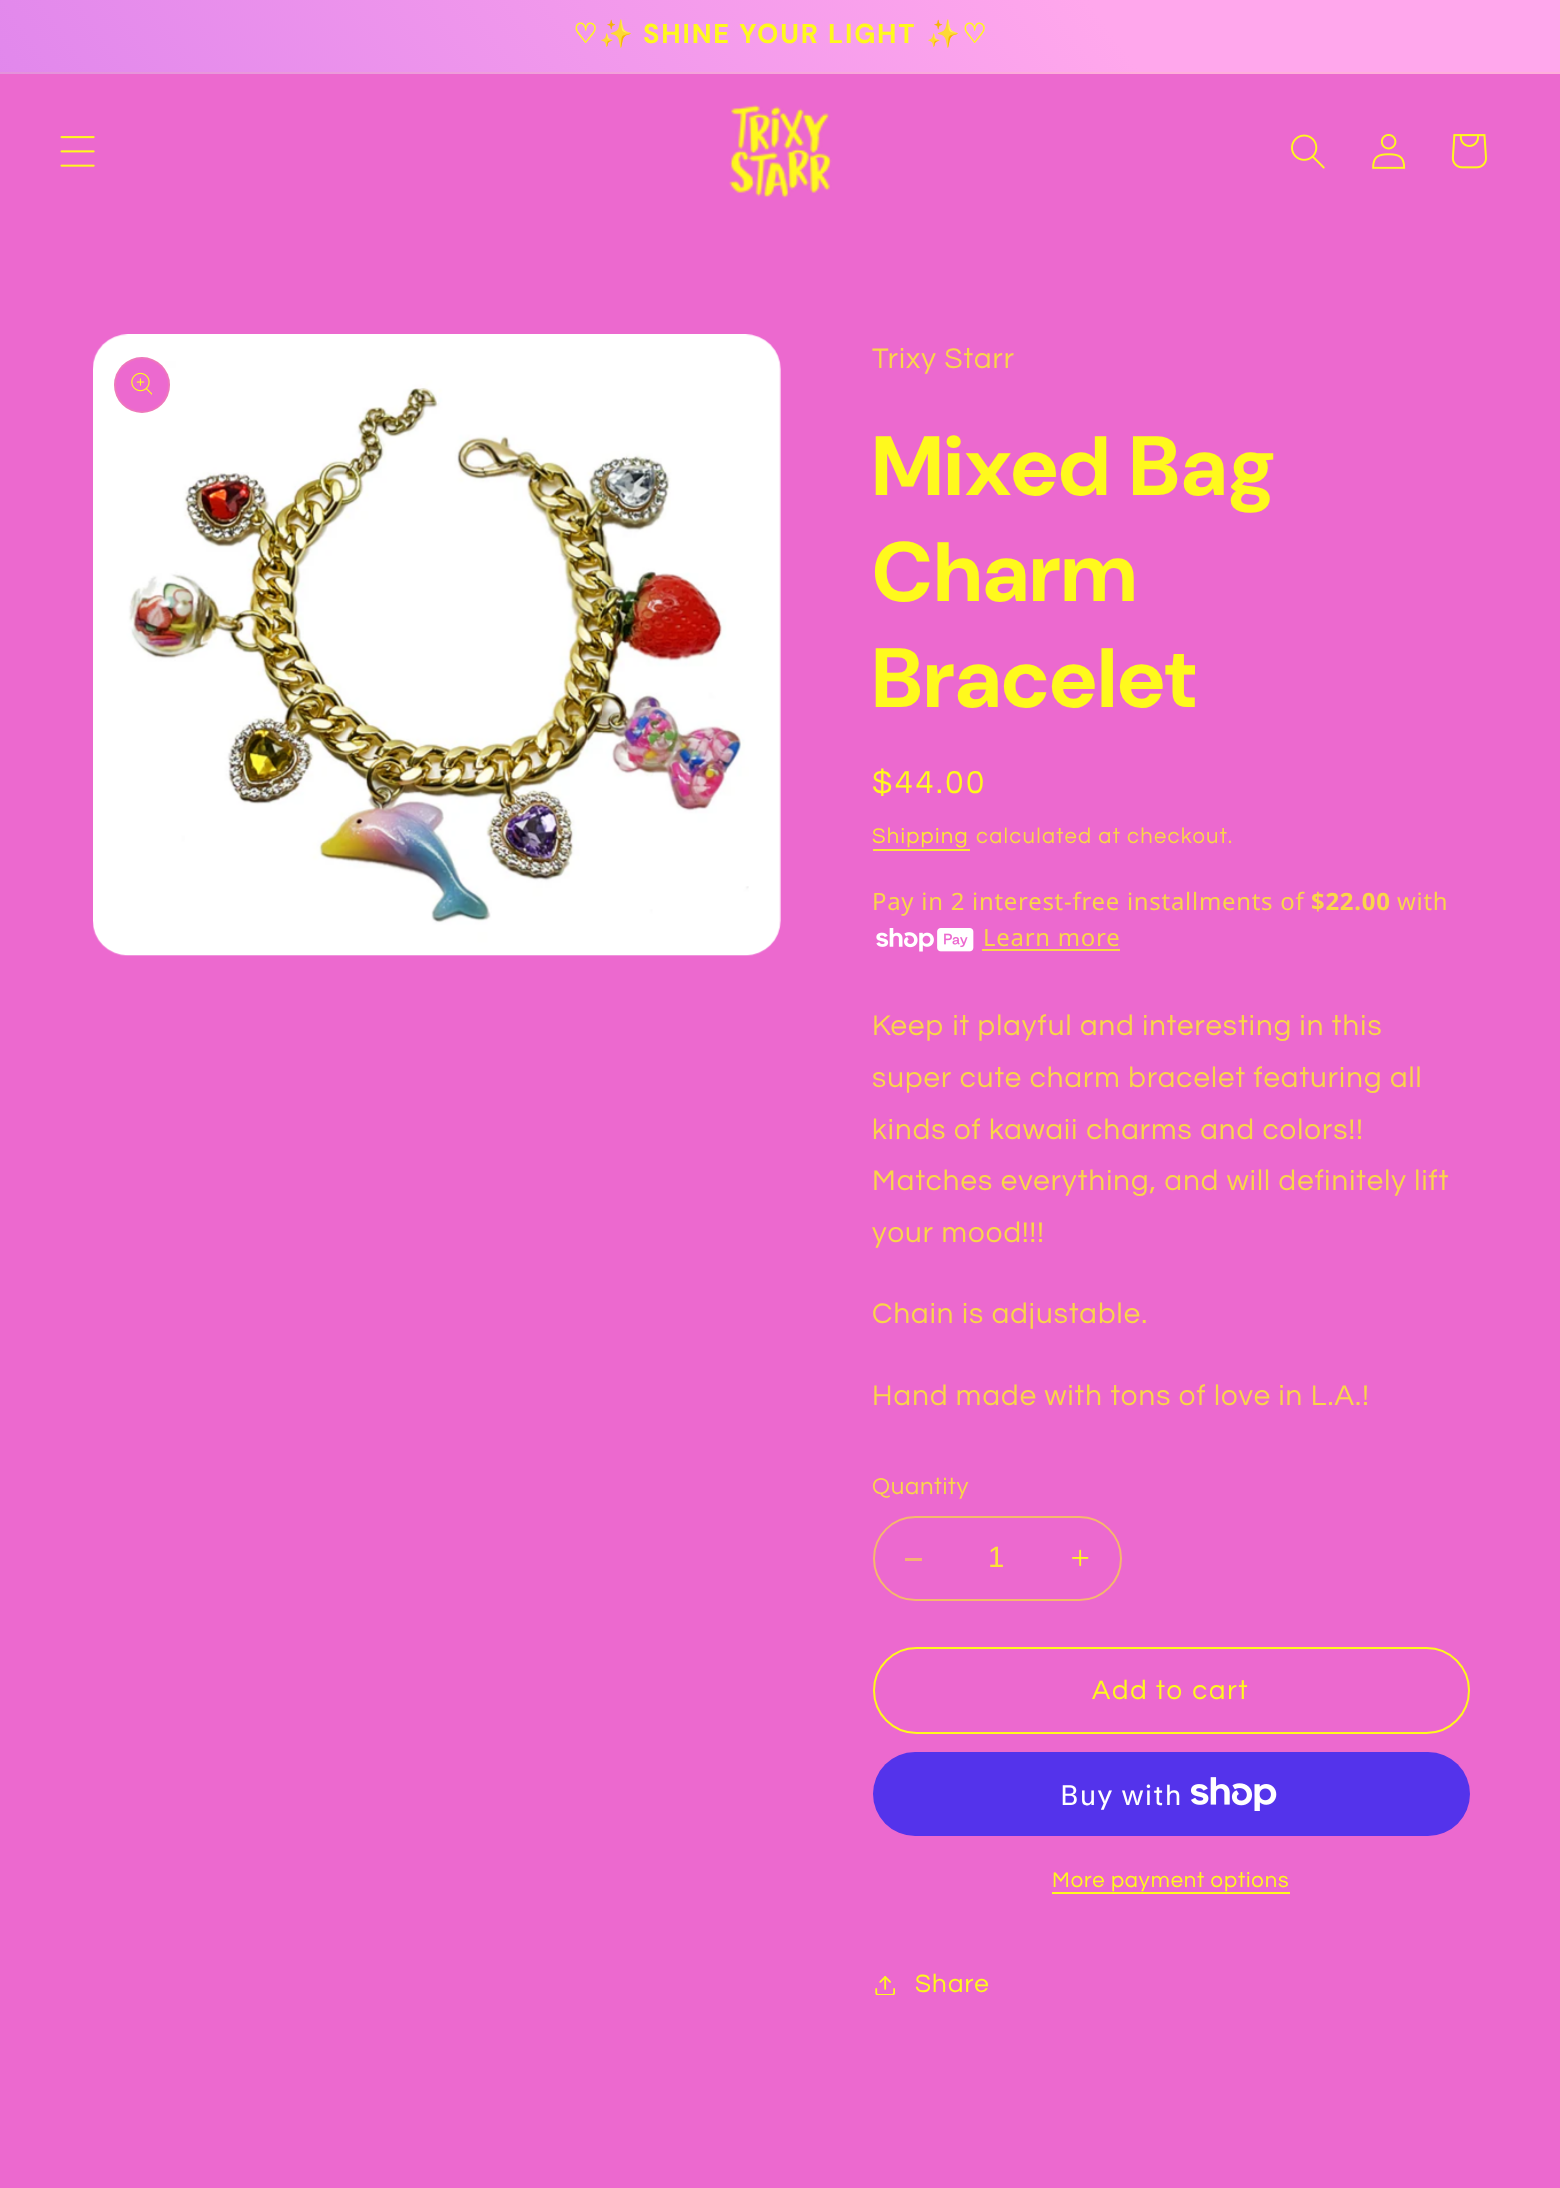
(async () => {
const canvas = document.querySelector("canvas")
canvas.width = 1560
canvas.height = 2188
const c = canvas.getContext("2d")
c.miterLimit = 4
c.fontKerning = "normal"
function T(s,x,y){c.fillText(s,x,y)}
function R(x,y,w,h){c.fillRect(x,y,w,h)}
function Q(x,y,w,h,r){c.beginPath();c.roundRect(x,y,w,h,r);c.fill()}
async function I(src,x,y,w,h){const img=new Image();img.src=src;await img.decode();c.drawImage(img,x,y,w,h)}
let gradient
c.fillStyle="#ec69cf"
R(0,0,1560,2188)
gradient = c.createLinearGradient(-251,1844,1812,345)
gradient.addColorStop(.14,"#c569ec")
gradient.addColorStop(.85,"#ffa7ec")
c.fillStyle = gradient
R(0,0,1560,72)
gradient = c.createLinearGradient(-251,1844,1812,345)
gradient.addColorStop(.14,"#ca75db")
gradient.addColorStop(.85,"#ffaedb")
c.fillStyle = gradient
R(0,72,1560,2)
c.letterSpacing="1.8px"
c.font="bold 27.25px DejaVu Sans"
c.fillStyle="#fff91d"
T("♡",573,43)
c.font="bold 27.25px Noto Color Emoji"
T("✨",599,43)
c.font="bold 27.25px 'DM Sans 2'"
T("SHINE YOUR LIGHT",643,43)
c.font="bold 27.25px Noto Color Emoji"
T("✨",926,43)
c.font="bold 27.25px DejaVu Sans"
T("♡",962,43)
await I("1.png",60,136,35,31)
await I("2.png",729,104,103,94)
await I("3.png",1291,134,34,35)
await I("4.png",1372,134,34,35)
await I("5.png",1451,134,36,35)
await I("6.png",93,334,688,622)
c.fillStyle="#ec69cf"
c.beginPath()
c.arc(142,385,28,0,7)
c.fill()
c.beginPath()
c.arc(142,385,27,0,7)
c.strokeStyle="#fff91d1a"
c.lineWidth=2
c.stroke()
await I("7.png",131,372,21,23)
c.letterSpacing="1.1px"
c.font="29.4px Questrial"
c.fillStyle="#fad54a"
T("Trixy Starr",872,368)
c.letterSpacing="1.25px"
c.font="bold 84px DM Sans"
c.fillStyle="#fff91d"
T("Mixed Bag",872,495)
T("Charm",872,601)
T("Bracelet",872,707)
c.letterSpacing="2.5px"
c.font="33px Questrial"
T("$44.00",872,793)
c.letterSpacing="1.25px"
c.font="22px Questrial"
c.fillStyle="#fce338"
T("Shipping",872,843)
R(873,849,97,2)
c.fillStyle="#fad54a"
T("calculated at checkout.",976,843)
c.letterSpacing="0.75px"
c.font="23.9px Noto Sans"
T("Pay in 2 interest-free installments of",872,910)
c.font="bold 23.9px Noto Sans"
T("$22.00",1311,910)
c.font="23.9px Noto Sans"
T("with",1397,910)
await I("8.png",876,928,98,24)
T("Learn more",983,946)
R(982,949,138,2)
c.letterSpacing="1.1px"
c.font="29.4px Questrial"
T("Keep it playful and interesting in this",872,1035)
T("super cute charm bracelet featuring all",872,1087)
T("kinds of kawaii charms and colors!!",872,1139)
T("Matches everything, and will definitely lift",872,1190)
T("your mood!!!",872,1242)
T("Chain is adjustable.",872,1323)
T("Hand made with tons of love in L.A.!",872,1405)
c.letterSpacing="0.75px"
c.font="23.9px Questrial"
T("Quantity",872,1494)
c.fillStyle="#f6b176"
R(905,1558,17,3)
await I("9.png",1072,1549,17,18)
c.beginPath()
c.roundRect(874,1517,247,83,41.5)
c.strokeStyle="#f6b86d"
c.stroke()
c.letterSpacing="0px"
c.font="29.4px Liberation Sans"
c.fillStyle="#fce338"
T("1",988,1567)
c.beginPath()
c.roundRect(874,1648,595,85,42.5)
c.strokeStyle="#fff91d"
c.stroke()
c.letterSpacing="1.8px"
c.font="27.5px Questrial"
c.fillStyle="#fff91d"
T("Add to cart",1092,1699)
c.fillStyle="#5433eb"
Q(873,1752,597,84,42)
c.letterSpacing="1.1px"
c.font="28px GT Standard"
c.fillStyle="#fff"
T("Buy with",1060,1805)
await I("10.png",1191,1777,86,34)
c.letterSpacing="0.9px"
c.font="22px Questrial"
c.fillStyle="#fff91d"
T("More payment options",1052,1887)
R(1052,1892,238,2)
await I("11.png",875,1976,21,19)
c.letterSpacing="1.1px"
c.font="26px Questrial"
T("Share",915,1992)
})()
